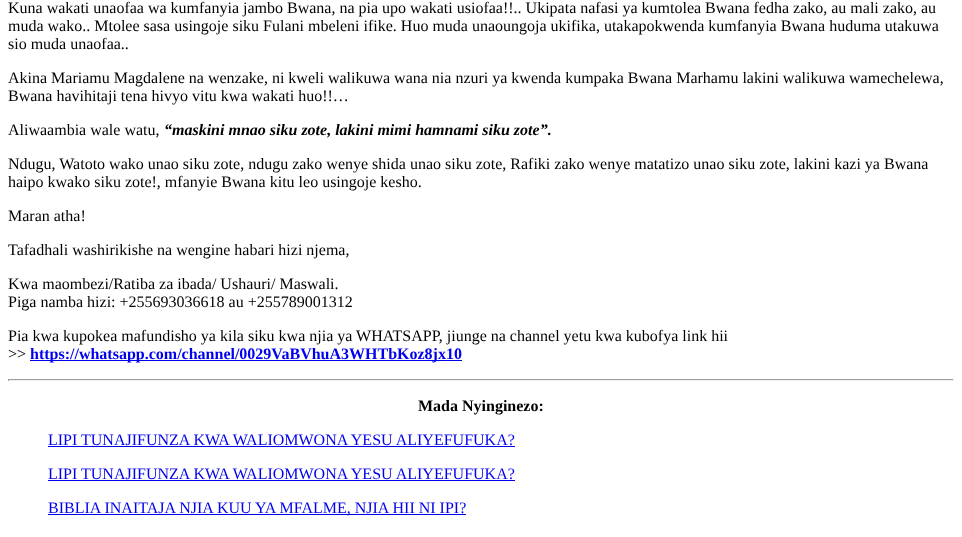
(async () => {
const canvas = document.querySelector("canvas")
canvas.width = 962
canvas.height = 537
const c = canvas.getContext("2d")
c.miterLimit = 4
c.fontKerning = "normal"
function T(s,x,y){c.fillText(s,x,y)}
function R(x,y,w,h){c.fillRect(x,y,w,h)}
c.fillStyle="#fff"
R(0,0,962,537)
c.font="16px Liberation Serif"
c.fillStyle="#000"
T("Kuna wakati unaofaa wa kumfanyia jambo Bwana, na pia upo wakati usiofaa!!.. Ukipata nafasi ya kumtolea Bwana fedha zako, au mali zako, au",8,13)
T("muda wako.. Mtolee sasa usingoje siku Fulani mbeleni ifike. Huo muda unaoungoja ukifika, utakapokwenda kumfanyia Bwana huduma utakuwa",8,31)
T("sio muda unaofaa..",8,49)
T("Akina Mariamu Magdalene na wenzake, ni kweli walikuwa wana nia nzuri ya kwenda kumpaka Bwana Marhamu lakini walikuwa wamechelewa,",8,83)
T("Bwana havihitaji tena hivyo vitu kwa wakati huo!!…",8,101)
T("Aliwaambia wale watu,",8,135)
c.font="italic bold 16px Liberation Serif"
T("“maskini mnao siku zote, lakini mimi hamnami siku zote”.",164,135)
c.font="16px Liberation Serif"
T("Ndugu, Watoto wako unao siku zote, ndugu zako wenye shida unao siku zote, Rafiki zako wenye matatizo unao siku zote, lakini kazi ya Bwana",8,169)
T("haipo kwako siku zote!, mfanyie Bwana kitu leo usingoje kesho.",8,187)
T("Maran atha!",8,221)
T("Tafadhali washirikishe na wengine habari hizi njema,",8,255)
T("Kwa maombezi/Ratiba za ibada/ Ushauri/ Maswali.",8,289)
T("Piga namba hizi: +255693036618 au +255789001312",8,307)
T("Pia kwa kupokea mafundisho ya kila siku kwa njia ya WHATSAPP, jiunge na channel yetu kwa kubofya link hii",8,341)
T(">>",8,359)
c.fillStyle="#00e"
R(30,360,432,1)
c.font="bold 16px Liberation Serif"
T("https://whatsapp.com/channel/0029VaBVhuA3WHTbKoz8jx10",30,359)
c.fillStyle="#9f9f9f"
R(8,379,946,1)
c.fillStyle="#eee"
R(953,379,1,2)
R(8,380,946,1)
c.fillStyle="#9f9f9f"
R(8,379,1,2)
c.fillStyle="#000"
T("Mada Nyinginezo:",418,411)
c.font="16px Liberation Serif"
c.fillStyle="#00e"
T("LIPI TUNAJIFUNZA KWA WALIOMWONA YESU ALIYEFUFUKA?",48,445)
R(48,446,467,1)
T("LIPI TUNAJIFUNZA KWA WALIOMWONA YESU ALIYEFUFUKA?",48,479)
R(48,480,467,1)
R(48,514,418,1)
T("BIBLIA INAITAJA NJIA KUU YA MFALME, NJIA HII NI IPI?",48,513)
})()
